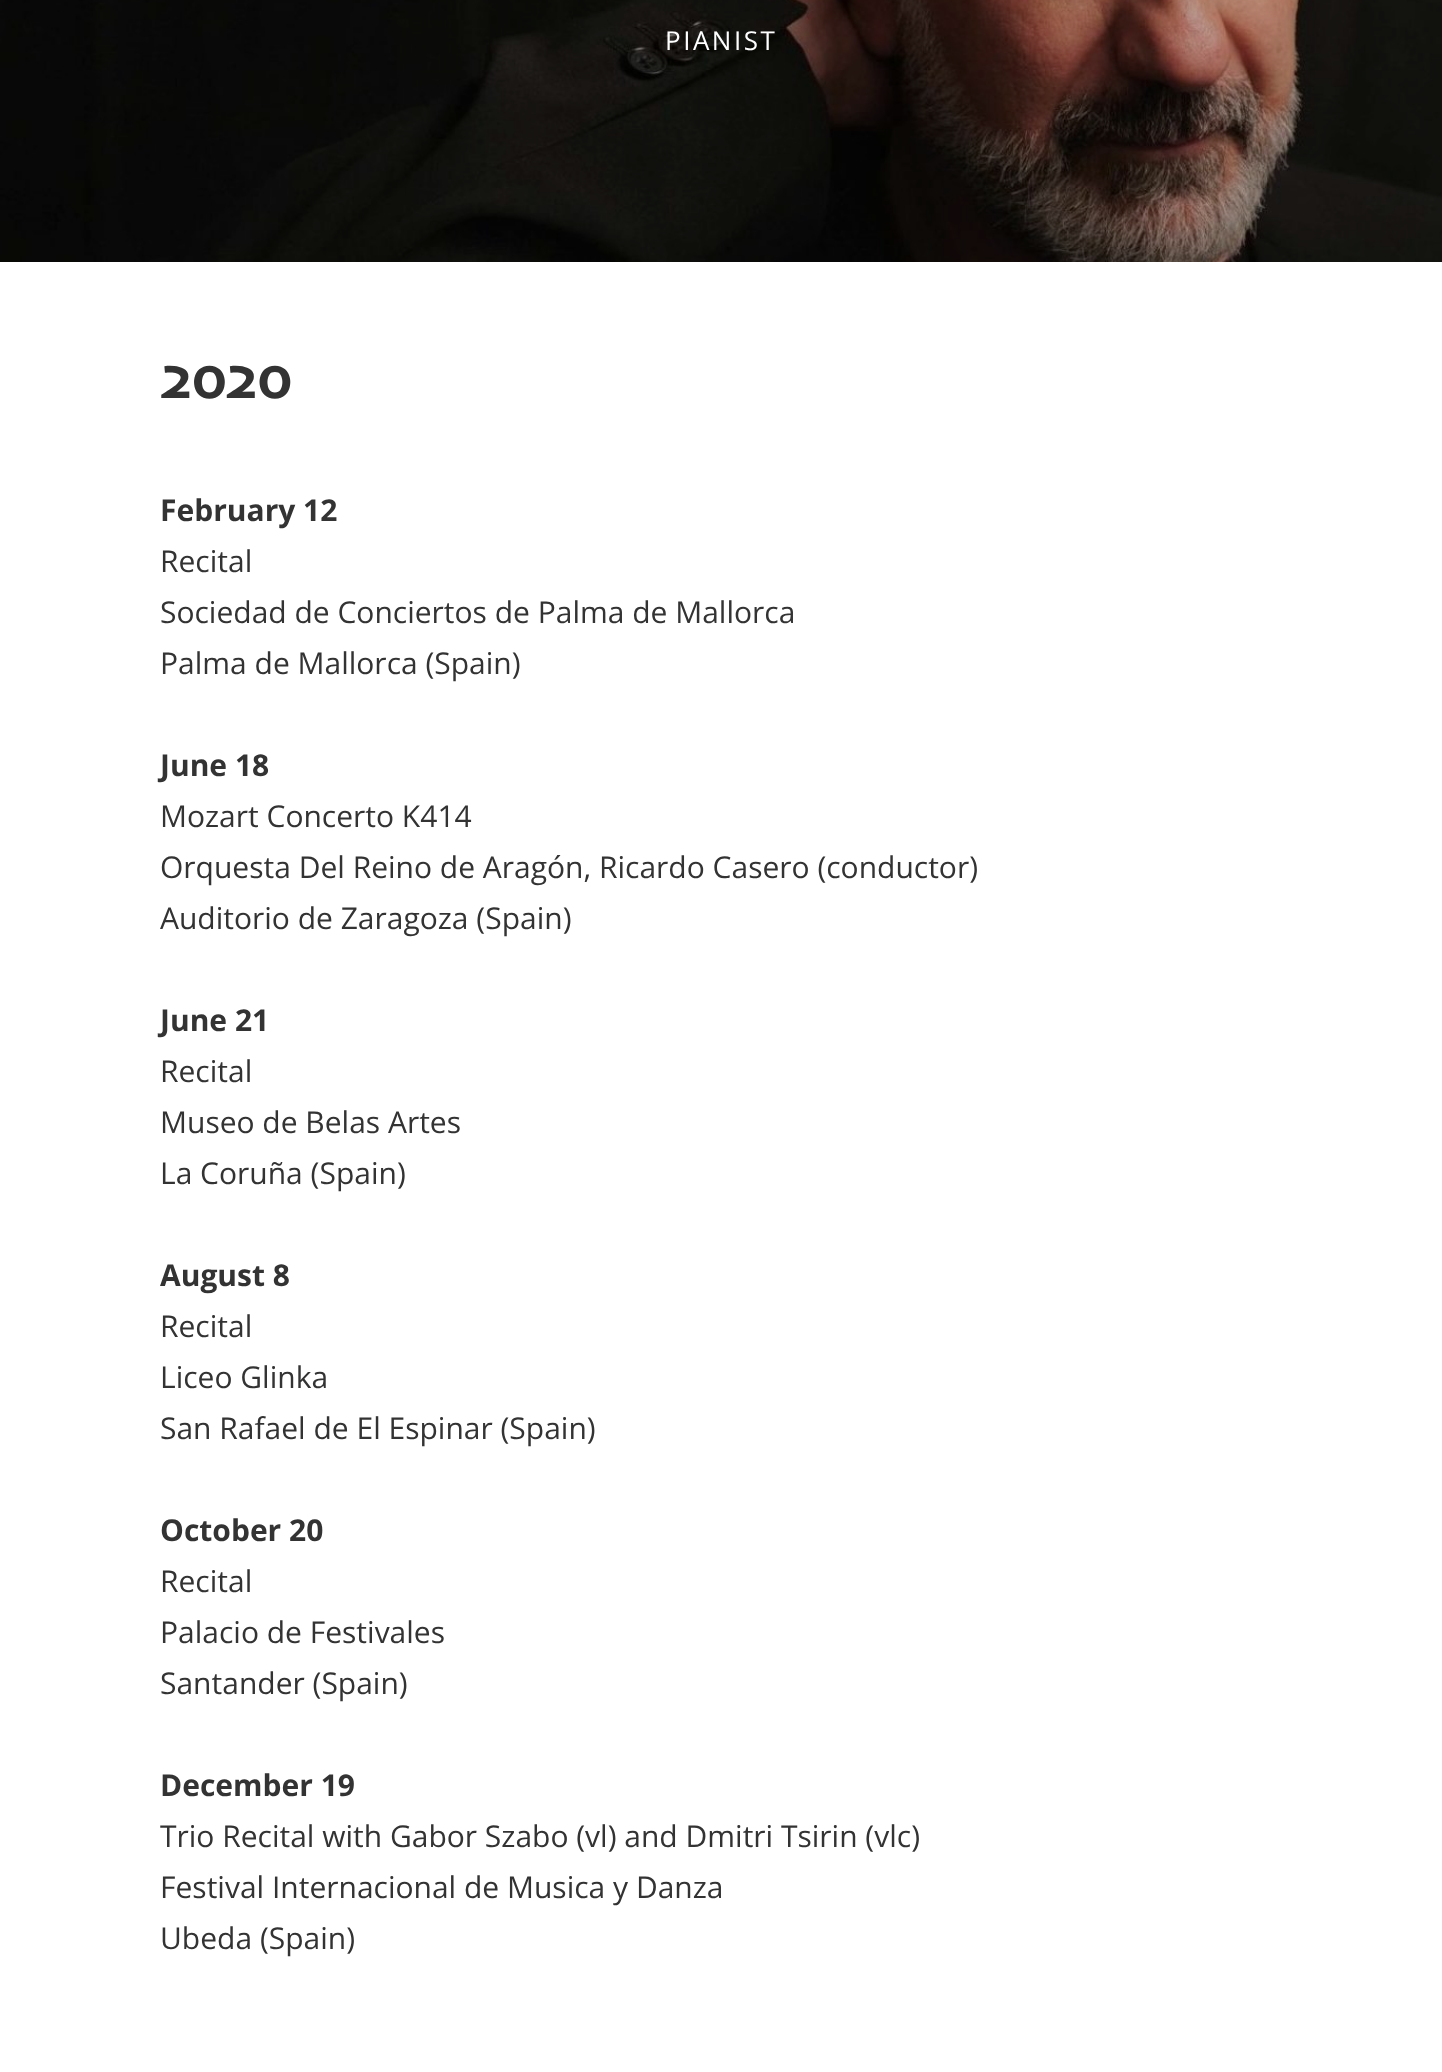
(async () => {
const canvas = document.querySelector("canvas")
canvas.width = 1442
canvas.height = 2072
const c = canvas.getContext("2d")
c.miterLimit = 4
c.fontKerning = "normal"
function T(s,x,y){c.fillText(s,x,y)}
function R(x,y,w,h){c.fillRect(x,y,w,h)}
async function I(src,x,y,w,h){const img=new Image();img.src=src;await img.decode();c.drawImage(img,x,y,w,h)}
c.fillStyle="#fff"
R(0,0,1442,2072)
await I("1.png",0,0,1442,262)
c.letterSpacing="2.5px"
c.font="26px Open Sans"
T("PIANIST",665,50)
c.letterSpacing="0px"
c.font="bold 60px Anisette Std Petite"
c.fillStyle="#333"
T("2020",160,398)
c.font="bold 30px Open Sans"
T("February 12",160,521)
c.font="30px Open Sans"
T("Recital",160,572)
T("Sociedad de Conciertos de Palma de Mallorca",160,623)
T("Palma de Mallorca (Spain)",160,674)
c.font="bold 30px Open Sans"
T("June 18",160,776)
c.font="30px Open Sans"
T("Mozart Concerto K414",160,827)
T("Orquesta Del Reino de Aragón, Ricardo Casero (conductor)",160,878)
T("Auditorio de Zaragoza (Spain)",160,929)
c.font="bold 30px Open Sans"
T("June 21",160,1031)
c.font="30px Open Sans"
T("Recital",160,1082)
T("Museo de Belas Artes",160,1133)
T("La Coruña (Spain)",160,1184)
c.font="bold 30px Open Sans"
T("August 8",160,1286)
c.font="30px Open Sans"
T("Recital",160,1337)
T("Liceo Glinka",160,1388)
T("San Rafael de El Espinar (Spain)",160,1439)
c.font="bold 30px Open Sans"
T("October 20",160,1541)
c.font="30px Open Sans"
T("Recital",160,1592)
T("Palacio de Festivales",160,1643)
T("Santander (Spain)",160,1694)
c.font="bold 30px Open Sans"
T("December 19",160,1796)
c.font="30px Open Sans"
T("Trio Recital with Gabor Szabo (vl) and Dmitri Tsirin (vlc)",160,1847)
T("Festival Internacional de Musica y Danza",160,1898)
T("Ubeda (Spain)",160,1949)
})()
